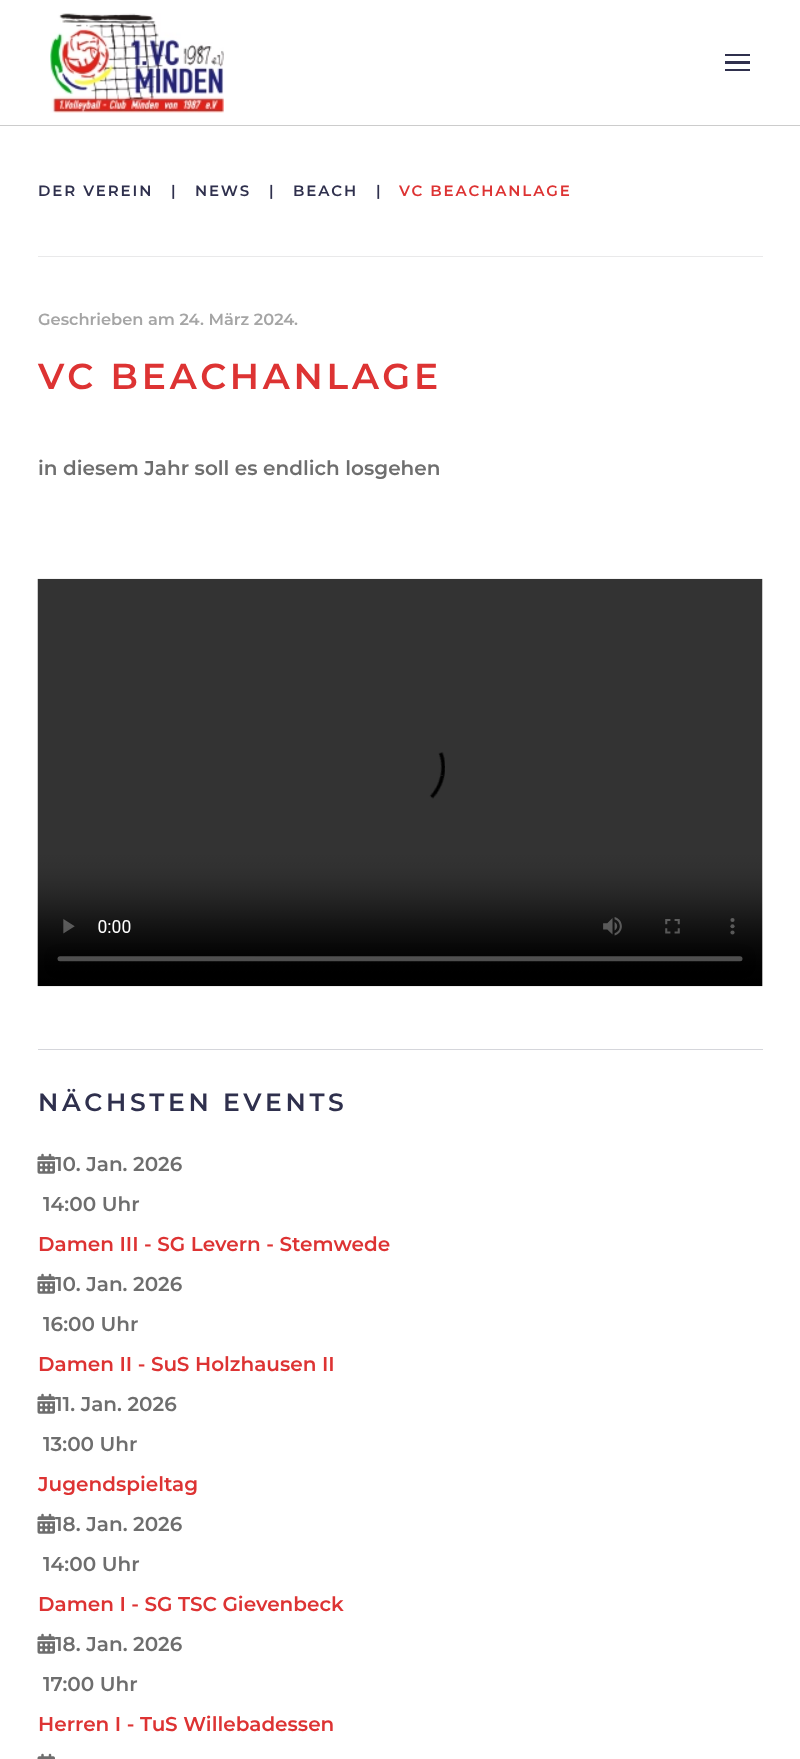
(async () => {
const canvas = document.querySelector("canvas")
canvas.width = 800
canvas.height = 1759
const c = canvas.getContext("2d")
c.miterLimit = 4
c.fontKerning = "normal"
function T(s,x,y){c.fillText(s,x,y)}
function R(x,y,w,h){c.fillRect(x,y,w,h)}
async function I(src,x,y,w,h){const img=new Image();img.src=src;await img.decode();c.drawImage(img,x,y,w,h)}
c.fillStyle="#fff"
R(0,0,800,1759)
c.fillStyle="#ccc"
R(0,125,800,1)
await I("1.png",50,13,174,100)
c.fillStyle="#2f304d"
R(725,54,25,2)
R(725,61,25,3)
R(725,69,25,2)
c.letterSpacing="1.9px"
c.font="100 15px Montserrat"
T("DER VEREIN",38,196)
c.letterSpacing="0px"
T("|",171,196)
c.letterSpacing="1.9px"
T("NEWS",195,196)
c.letterSpacing="0px"
T("|",269,196)
c.letterSpacing="1.9px"
T("BEACH",293,196)
c.letterSpacing="0px"
T("|",376,196)
c.letterSpacing="1.9px"
c.fillStyle="#d33"
T("VC BEACHANLAGE",399,196)
c.fillStyle="#e9e9ea"
R(38,256,725,1)
c.letterSpacing="0px"
c.font="100 16.25px Montserrat"
c.fillStyle="#a5a5a5"
T("Geschrieben am 24. März 2024",38,325)
T(".",294,325)
c.letterSpacing="3.75px"
c.font="100 36.1px Montserrat"
c.fillStyle="#d33"
T("VC BEACHANLAGE",38,389)
c.letterSpacing="0px"
c.font="100 20px Montserrat"
c.fillStyle="#6e6e6e"
T("in diesem Jahr soll es endlich losgehen",38,475)
await I("2.png",37,578,726,409)
c.fillStyle="#d5d6db"
R(38,1049,725,1)
c.letterSpacing="3.75px"
c.font="100 25px Montserrat"
c.fillStyle="#2f304d"
T("NÄCHSTEN EVENTS",38,1111)
await I("3.png",37,1153,18,21)
c.letterSpacing="0px"
c.font="100 20px Montserrat"
c.fillStyle="#6e6e6e"
T("10. Jan. 2026",55,1171)
T("14:00 Uhr",43,1211)
c.fillStyle="#d33"
T("Damen III - SG Levern - Stemwede",38,1251)
await I("3.png",37,1273,18,21)
c.fillStyle="#6e6e6e"
T("10. Jan. 2026",55,1291)
T("16:00 Uhr",43,1331)
c.fillStyle="#d33"
T("Damen II - SuS Holzhausen II",38,1371)
await I("3.png",37,1393,18,21)
c.fillStyle="#6e6e6e"
T("11. Jan. 2026",55,1411)
T("13:00 Uhr",43,1451)
c.fillStyle="#d33"
T("Jugendspieltag",38,1491)
await I("3.png",37,1513,18,21)
c.fillStyle="#6e6e6e"
T("18. Jan. 2026",55,1531)
T("14:00 Uhr",43,1571)
c.fillStyle="#d33"
T("Damen I - SG TSC Gievenbeck",38,1611)
await I("3.png",37,1633,18,21)
c.fillStyle="#6e6e6e"
T("18. Jan. 2026",55,1651)
T("17:00 Uhr",43,1691)
c.fillStyle="#d33"
T("Herren I - TuS Willebadessen",38,1731)
await I("4.png",37,1753,18,6)
})()
